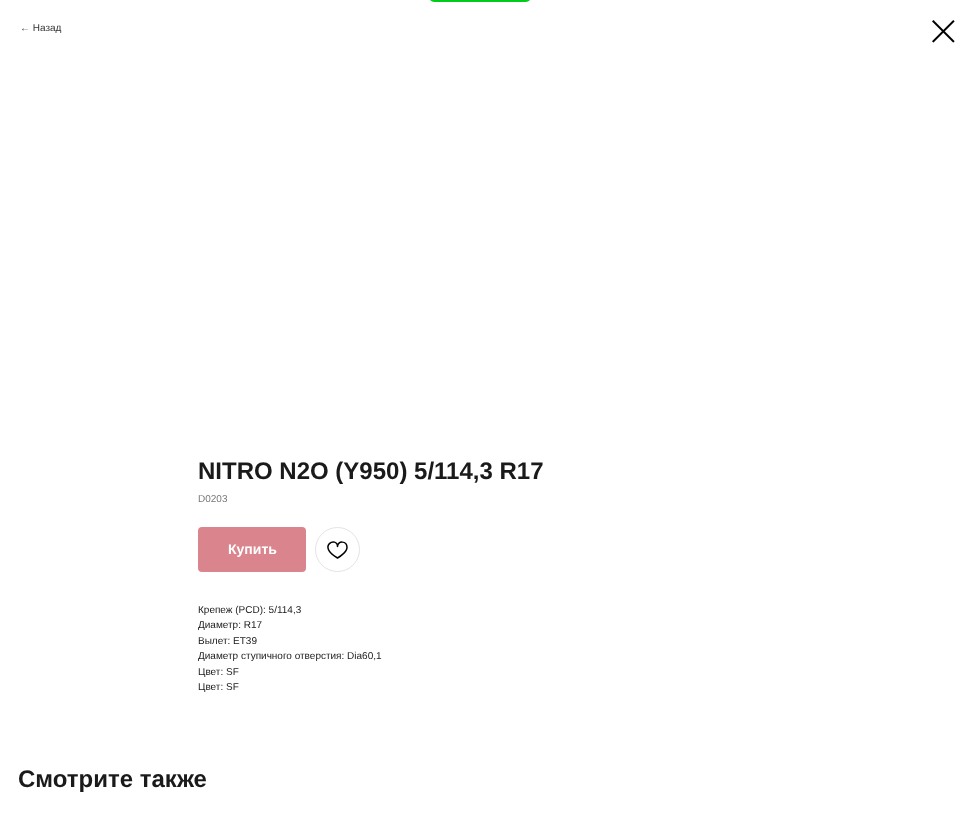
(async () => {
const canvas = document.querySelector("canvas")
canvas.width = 975
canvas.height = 820
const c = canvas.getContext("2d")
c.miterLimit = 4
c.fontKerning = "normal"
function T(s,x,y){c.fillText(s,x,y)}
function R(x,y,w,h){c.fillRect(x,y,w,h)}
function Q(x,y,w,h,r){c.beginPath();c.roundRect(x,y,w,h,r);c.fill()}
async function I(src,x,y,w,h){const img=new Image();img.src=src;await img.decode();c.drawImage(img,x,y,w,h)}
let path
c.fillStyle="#fff"
R(0,0,975,820)
c.font="10px Liberation Sans"
c.fillStyle="#333"
T("← Назад",20,31)
await I("1.png",932,20,23,23)
c.fillStyle="#00cc19"
Q(428,-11,104,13,11)
c.font="bold 24px Liberation Sans"
c.fillStyle="#1a1a1a"
T("NITRO N2O (Y950) 5/114,3 R17",198,479)
c.font="10px Liberation Sans"
c.fillStyle="#777"
T("D0203",198,502)
c.fillStyle="#da858d"
Q(198,527,108,45,4)
c.font="bold 14px Liberation Sans"
c.fillStyle="#fff"
T("Купить",228,554)
c.beginPath()
c.arc(337.5,549.5,22,0,7)
c.strokeStyle="#e4e4e4"
c.stroke()
path = new Path2D("M347 547.5c0 5-9.5 10.5-9.5 10.5c-21.5-12.5 0-22 0-11.5c0-6 9.5-6 9.5 1z")
c.strokeStyle="#000"
c.lineWidth=1.5
c.lineJoin="round"
c.stroke(path)
c.font="10px Liberation Sans"
c.fillStyle="#1a1a1a"
T("Крепеж (PCD): 5/114,3",198,613)
T("Диаметр: R17",198,628)
T("Вылет: ET39",198,644)
T("Диаметр ступичного отверстия: Dia60,1",198,659)
T("Цвет: SF",198,675)
T("Цвет: SF",198,690)
c.font="bold 24px Liberation Sans"
T("Смотрите также",18,787)
})()
